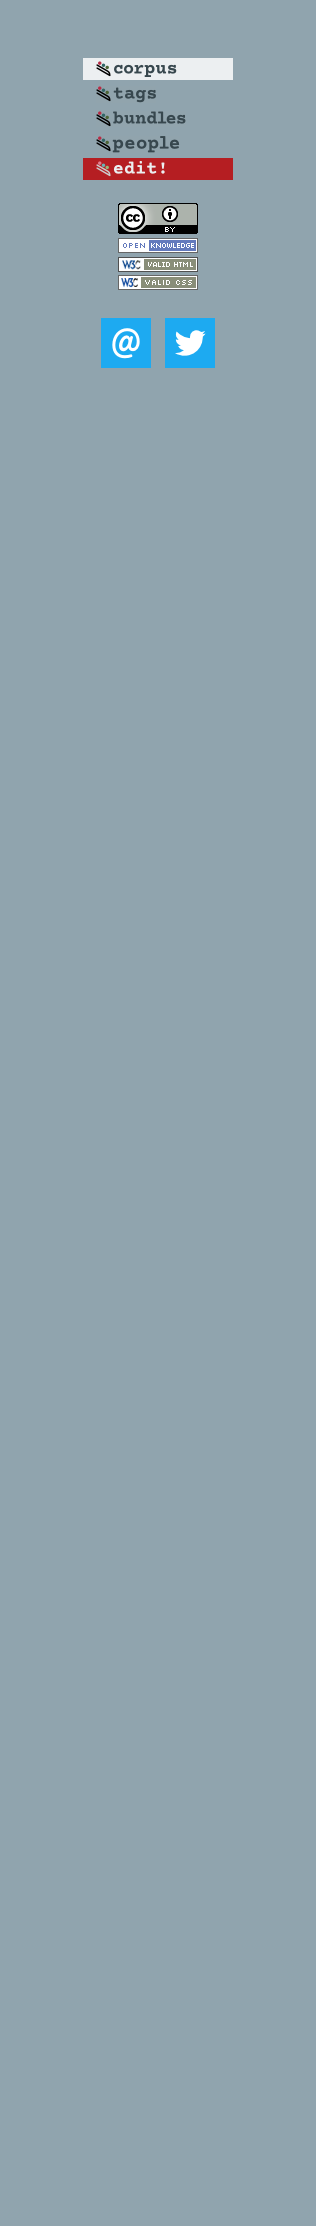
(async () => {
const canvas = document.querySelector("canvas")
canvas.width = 316
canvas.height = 2226
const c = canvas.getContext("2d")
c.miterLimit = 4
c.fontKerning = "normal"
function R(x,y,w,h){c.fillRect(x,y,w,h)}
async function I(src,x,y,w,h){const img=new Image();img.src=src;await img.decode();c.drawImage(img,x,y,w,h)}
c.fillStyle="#90a4ae"
R(0,0,316,2226)
await I("1.png",83,58,150,22)
await I("2.png",96,86,60,17)
await I("3.png",96,111,90,16)
await I("4.png",96,136,84,17)
await I("5.png",83,158,150,22)
await I("6.png",118,203,80,31)
await I("7.png",118,238,80,15)
await I("8.png",118,257,80,15)
await I("9.png",118,275,80,15)
await I("10.png",101,318,50,50)
await I("11.png",165,318,50,50)
})()
